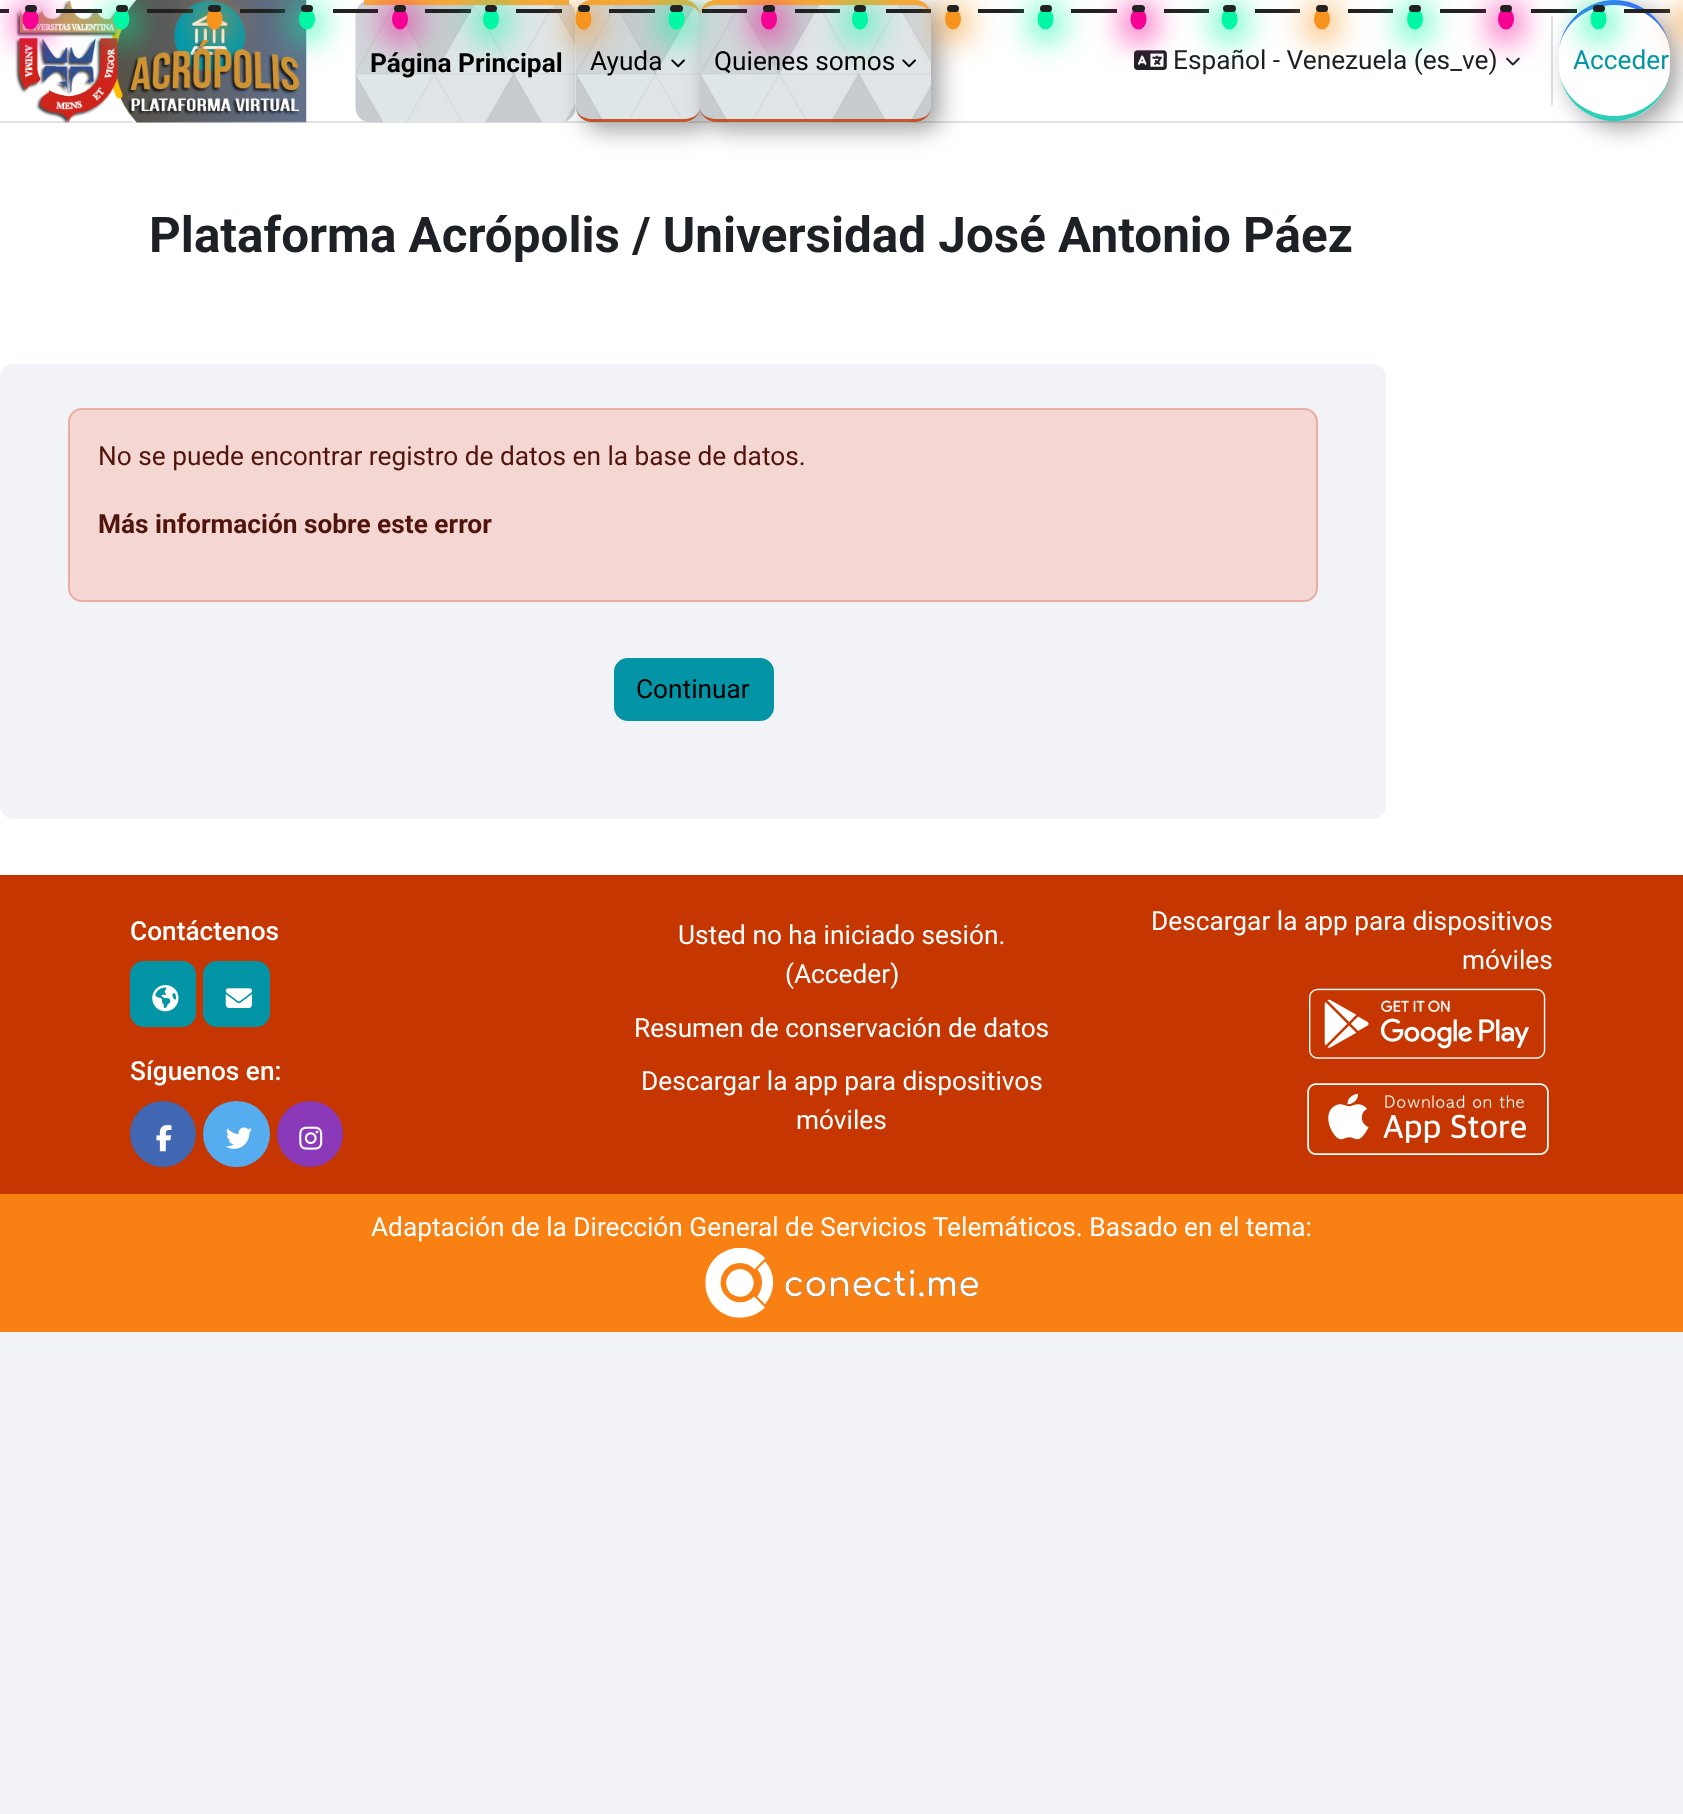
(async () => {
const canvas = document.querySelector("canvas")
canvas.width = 1683
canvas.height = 1814
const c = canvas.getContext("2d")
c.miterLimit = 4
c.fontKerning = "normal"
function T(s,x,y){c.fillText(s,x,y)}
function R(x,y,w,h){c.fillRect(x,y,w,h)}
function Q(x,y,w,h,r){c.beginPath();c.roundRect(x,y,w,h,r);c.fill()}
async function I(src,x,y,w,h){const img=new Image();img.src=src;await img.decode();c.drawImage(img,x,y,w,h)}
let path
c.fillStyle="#f2f3f7"
R(0,0,1683,1814)
c.fillStyle="#fff"
R(0,0,1683,121)
c.fillStyle="#222"
R(0,9,9,4)
c.fillStyle="#dee2e6"
R(0,121,1683,2)
await I("1.png",15,0,292,123)
c.fillStyle="#f70094"
c.filter="blur(16px)"
c.beginPath()
c.roundRect(18,7,26,32,13)
c.fill()
c.filter="none"
c.beginPath()
c.ellipse(30.5,19,8,10.5,0,0,7)
c.fill()
c.fillStyle="#222"
Q(25,5,12,7,3.5)
R(56,9,46,4)
c.fillStyle="#00f7a5"
c.filter="blur(16px)"
c.beginPath()
c.roundRect(109,7,26,32,13)
c.fill()
c.filter="none"
c.beginPath()
c.ellipse(121.5,19,8,10.5,0,0,7)
c.fill()
c.fillStyle="#222"
Q(116,5,12,7,3.5)
R(147,9,46,4)
c.fillStyle="#f7941d"
c.filter="blur(16px)"
c.beginPath()
c.roundRect(201,7,27,32,13.5)
c.fill()
c.filter="none"
c.beginPath()
c.ellipse(214.5,19,8,10.5,0,0,7)
c.fill()
c.fillStyle="#222"
Q(208,5,13,7,3.5)
R(240,9,45,4)
await I("2.png",355,1,221,122)
c.fillStyle="#f5a938"
R(364,0,205,5)
c.fillStyle="#00f7a5"
c.filter="blur(16px)"
c.beginPath()
c.roundRect(294,7,26,32,13)
c.fill()
c.filter="none"
c.beginPath()
c.ellipse(307,19,8,10.5,0,0,7)
c.fill()
c.fillStyle="#222"
Q(301,5,12,7,3.5)
R(333,9,45,4)
c.fillStyle="#f70094"
c.filter="blur(16px)"
c.beginPath()
c.roundRect(387,7,26,32,13)
c.fill()
c.filter="none"
c.beginPath()
c.ellipse(400,19,8,10.5,0,0,7)
c.fill()
c.fillStyle="#222"
Q(394,5,12,7,3.5)
R(425,9,46,4)
c.fillStyle="#00f7a5"
c.filter="blur(16px)"
c.beginPath()
c.roundRect(478,7,26,32,13)
c.fill()
c.filter="none"
c.beginPath()
c.ellipse(491,19,8,10.5,0,0,7)
c.fill()
c.fillStyle="#222"
Q(485,5,12,7,3.5)
c.fillStyle="#fff"
R(0,123,1683,752)
c.fillStyle="#0000005e"
c.filter="blur(11.5px)"
c.beginPath()
c.roundRect(585,7,124,123,16)
c.fill()
c.filter="none"
c.fillStyle="#222"
R(516,9,46,4)
await I("3.png",576,0,124,123)
c.fillStyle="#f5a938"
path = new Path2D("M592 0c-9 0-16 7-16 16c0-6 7-11 16-11h92c9 0 16 5 16 11c0-9-7-16-16-16z")
c.fill(path)
c.fillStyle="#f7941d"
c.filter="blur(16px)"
c.beginPath()
c.roundRect(571,7,26,32,13)
c.fill()
c.filter="none"
c.beginPath()
c.ellipse(583.5,19,8,10.5,0,0,7)
c.fill()
c.fillStyle="#222"
Q(578,5,12,7,3.5)
R(609,9,46,4)
await I("4.png",671,59,14,9)
c.fillStyle="#c53600d1"
path = new Path2D("M684 122c9 0 16-7 16-15c0 7-7 12-16 12h-92c-9 0-16-5-16-12c0 8 7 15 16 15z")
c.fill(path)
c.fillStyle="#0000005e"
c.filter="blur(11.5px)"
c.beginPath()
c.roundRect(709,7,231,123,16)
c.fill()
c.filter="none"
await I("5.png",700,0,231,123)
c.fillStyle="#f5a938"
path = new Path2D("M716 0c-9 0-16 7-16 16c0-6 7-11 16-11h199c9 0 16 5 16 11c0-9-7-16-16-16z")
c.fill(path)
c.fillStyle="#00f7a5"
c.filter="blur(16px)"
c.beginPath()
c.roundRect(663,7,27,32,13.5)
c.fill()
c.filter="none"
c.beginPath()
c.ellipse(676.5,19,8,10.5,0,0,7)
c.fill()
c.fillStyle="#222"
Q(670,5,13,7,3.5)
R(702,9,45,4)
c.fillStyle="#f70094"
c.filter="blur(16px)"
c.beginPath()
c.roundRect(756,7,26,32,13)
c.fill()
c.filter="none"
c.beginPath()
c.ellipse(769,19,8,10.5,0,0,7)
c.fill()
c.fillStyle="#222"
Q(763,5,12,7,3.5)
R(795,9,45,4)
await I("6.png",902,59,14,9)
c.fillStyle="#00f7a5"
c.filter="blur(16px)"
c.beginPath()
c.roundRect(847,7,26,32,13)
c.fill()
c.filter="none"
c.beginPath()
c.ellipse(860,19,8,10.5,0,0,7)
c.fill()
c.fillStyle="#222"
Q(854,5,12,7,3.5)
R(886,9,45,4)
c.fillStyle="#f7941d"
c.filter="blur(16px)"
c.beginPath()
c.roundRect(940,7,26,32,13)
c.fill()
c.filter="none"
c.beginPath()
c.ellipse(953,19,8,10.5,0,0,7)
c.fill()
c.fillStyle="#222"
Q(947,5,12,7,3.5)
R(978,9,46,4)
c.fillStyle="#00f7a5"
c.filter="blur(16px)"
c.beginPath()
c.roundRect(1033,7,26,32,13)
c.fill()
c.filter="none"
c.beginPath()
c.ellipse(1045.5,19,8,10.5,0,0,7)
c.fill()
c.fillStyle="#222"
Q(1040,5,12,7,3.5)
R(1071,9,46,4)
await I("7.png",1134,50,33,20)
c.fillStyle="#f70094"
c.filter="blur(16px)"
c.beginPath()
c.roundRect(1125,7,27,32,13.5)
c.fill()
c.filter="none"
c.beginPath()
c.ellipse(1138.5,19,8,10.5,0,0,7)
c.fill()
c.fillStyle="#222"
Q(1132,5,13,7,3.5)
R(1164,9,45,4)
c.fillStyle="#00f7a5"
c.filter="blur(16px)"
c.beginPath()
c.roundRect(1216,7,27,32,13.5)
c.fill()
c.filter="none"
c.beginPath()
c.ellipse(1229.5,19,8,10.5,0,0,7)
c.fill()
c.fillStyle="#222"
Q(1223,5,13,7,3.5)
R(1255,9,45,4)
c.fillStyle="#f7941d"
c.filter="blur(16px)"
c.beginPath()
c.roundRect(1309,7,26,32,13)
c.fill()
c.filter="none"
c.beginPath()
c.ellipse(1322,19,8,10.5,0,0,7)
c.fill()
c.fillStyle="#222"
Q(1316,5,12,7,3.5)
R(1348,9,45,4)
c.fillStyle="#00f7a5"
c.filter="blur(16px)"
c.beginPath()
c.roundRect(1402,7,26,32,13)
c.fill()
c.filter="none"
c.beginPath()
c.ellipse(1415,19,8,10.5,0,0,7)
c.fill()
c.fillStyle="#222"
Q(1409,5,12,7,3.5)
R(1440,9,46,4)
await I("8.png",1506,57,14,9)
c.fillStyle="#dee2e6"
R(1551,16,2,89)
c.save()
path = new Path2D("M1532 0h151v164h-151zm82.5 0c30.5 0 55.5 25 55.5 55.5v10c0 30.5-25 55.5-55.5 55.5c-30.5 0-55.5-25-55.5-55.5v-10c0-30.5 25-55.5 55.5-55.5z")
c.clip(path,"evenodd")
c.fillStyle="#0000005e"
c.filter="blur(11.5px)"
c.beginPath()
c.roundRect(1568,7,110,121,55)
c.fill()
c.filter="none"
c.restore()
c.fillStyle="#3872f5"
path = new Path2D("M1614 0c-28 0-52 22-55 50c3-25 27-45 55-45c28 0 52 19 56 43c-4-27-28-48-56-48z")
c.fill(path)
c.fillStyle="#00c5aad1"
path = new Path2D("M1609 121c-26-3-47-24-50-50c3 25 27 45 55 45c28 0 52-19 56-43c-4 25-25 45-51 48z")
c.fill(path)
c.fillStyle="#f70094"
c.filter="blur(16px)"
c.beginPath()
c.roundRect(1493,7,26,32,13)
c.fill()
c.filter="none"
c.beginPath()
c.ellipse(1506,19,8,10.5,0,0,7)
c.fill()
c.fillStyle="#222"
Q(1500,5,12,7,3.5)
R(1531,9,46,4)
c.fillStyle="#00f7a5"
c.filter="blur(16px)"
c.beginPath()
c.roundRect(1586,7,26,32,13)
c.fill()
c.filter="none"
c.beginPath()
c.ellipse(1598.5,19,8,10.5,0,0,7)
c.fill()
c.fillStyle="#222"
Q(1593,5,12,7,3.5)
R(1624,9,46,4)
c.fillStyle="#f7941d"
c.filter="blur(16px)"
c.beginPath()
c.roundRect(1678,7,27,32,13.5)
c.fill()
c.filter="none"
c.font="bold 26.25px Roboto"
c.fillStyle="#000"
T("Página Principal",370,72)
c.font="26.25px Roboto"
T("Ayuda",590,70)
c.fillStyle="#c53600d1"
path = new Path2D("M915 122c9 0 16-7 16-15c0 7-7 12-16 12h-199c-9 0-16-5-16-12c0 8 7 15 16 15z")
c.fill(path)
c.fillStyle="#000"
T("Quienes somos",714,70)
c.fillStyle="#1d2125"
T("Español - Venezuela (es_ve)",1173,69)
c.fillStyle="#0394a5"
T("Acceder",1573,69)
c.font="bold 49.4px Roboto"
c.fillStyle="#1d2125"
T("Plataforma Acrópolis / Universidad José Antonio Páez",149,252)
c.fillStyle="#f2f3f7"
Q(0,364,1386,455,14)
c.fillStyle="#f4d6d2"
c.beginPath()
c.roundRect(69,409,1248,192,13)
c.fill()
c.strokeStyle="#eaada6"
c.lineWidth=2
c.stroke()
c.font="26.25px Roboto"
c.fillStyle="#51140d"
T("No se puede encontrar registro de datos en la base de datos.",98,465)
c.font="bold 26.25px Roboto"
T("Más información sobre este error",98,533)
c.fillStyle="#0394a5"
c.beginPath()
c.roundRect(615,659,158,61,13)
c.fill()
c.strokeStyle="#0394a5"
c.stroke()
c.font="26.25px Roboto"
c.fillStyle="#000"
T("Continuar",636,698)
c.fillStyle="#c53600"
R(0,875,1683,319)
c.font="500 26.25px Roboto"
c.fillStyle="#fff"
T("Contáctenos",130,940)
c.fillStyle="#0394a5"
Q(130,961,66,66,14)
await I("9.png",152,985,27,27)
Q(203,961,67,66,14)
await I("10.png",225,988,27,20)
c.fillStyle="#fff"
T("Síguenos en:",130,1080)
c.fillStyle="#4167b2"
c.beginPath()
c.arc(163,1134,33,0,7)
c.fill()
await I("11.png",156,1125,16,27)
c.fillStyle="#55acee"
Q(203,1101,67,66,33)
await I("12.png",226,1127,26,22)
c.fillStyle="#8a3ab9"
c.beginPath()
c.arc(310,1134,33,0,7)
c.fill()
await I("13.png",299,1126,24,24)
c.font="26.25px Roboto"
c.fillStyle="#fff"
T("Usted no ha iniciado sesión.",678,944)
T("(Acceder)",785,983)
T("Resumen de conservación de datos",634,1037)
T("Descargar la app para dispositivos",641,1090)
T("móviles",796,1129)
T("Descargar la app para dispositivos",1151,930)
T("móviles",1462,969)
await I("14.png",1309,988,237,71)
await I("15.png",1307,1083,242,72)
c.fillStyle="#f98012"
R(0,1194,1683,138)
c.fillStyle="#fff"
T("Adaptación de la Dirección General de Servicios Telemáticos. Basado en el tema:",371,1236)
await I("16.png",705,1248,273,70)
})()
